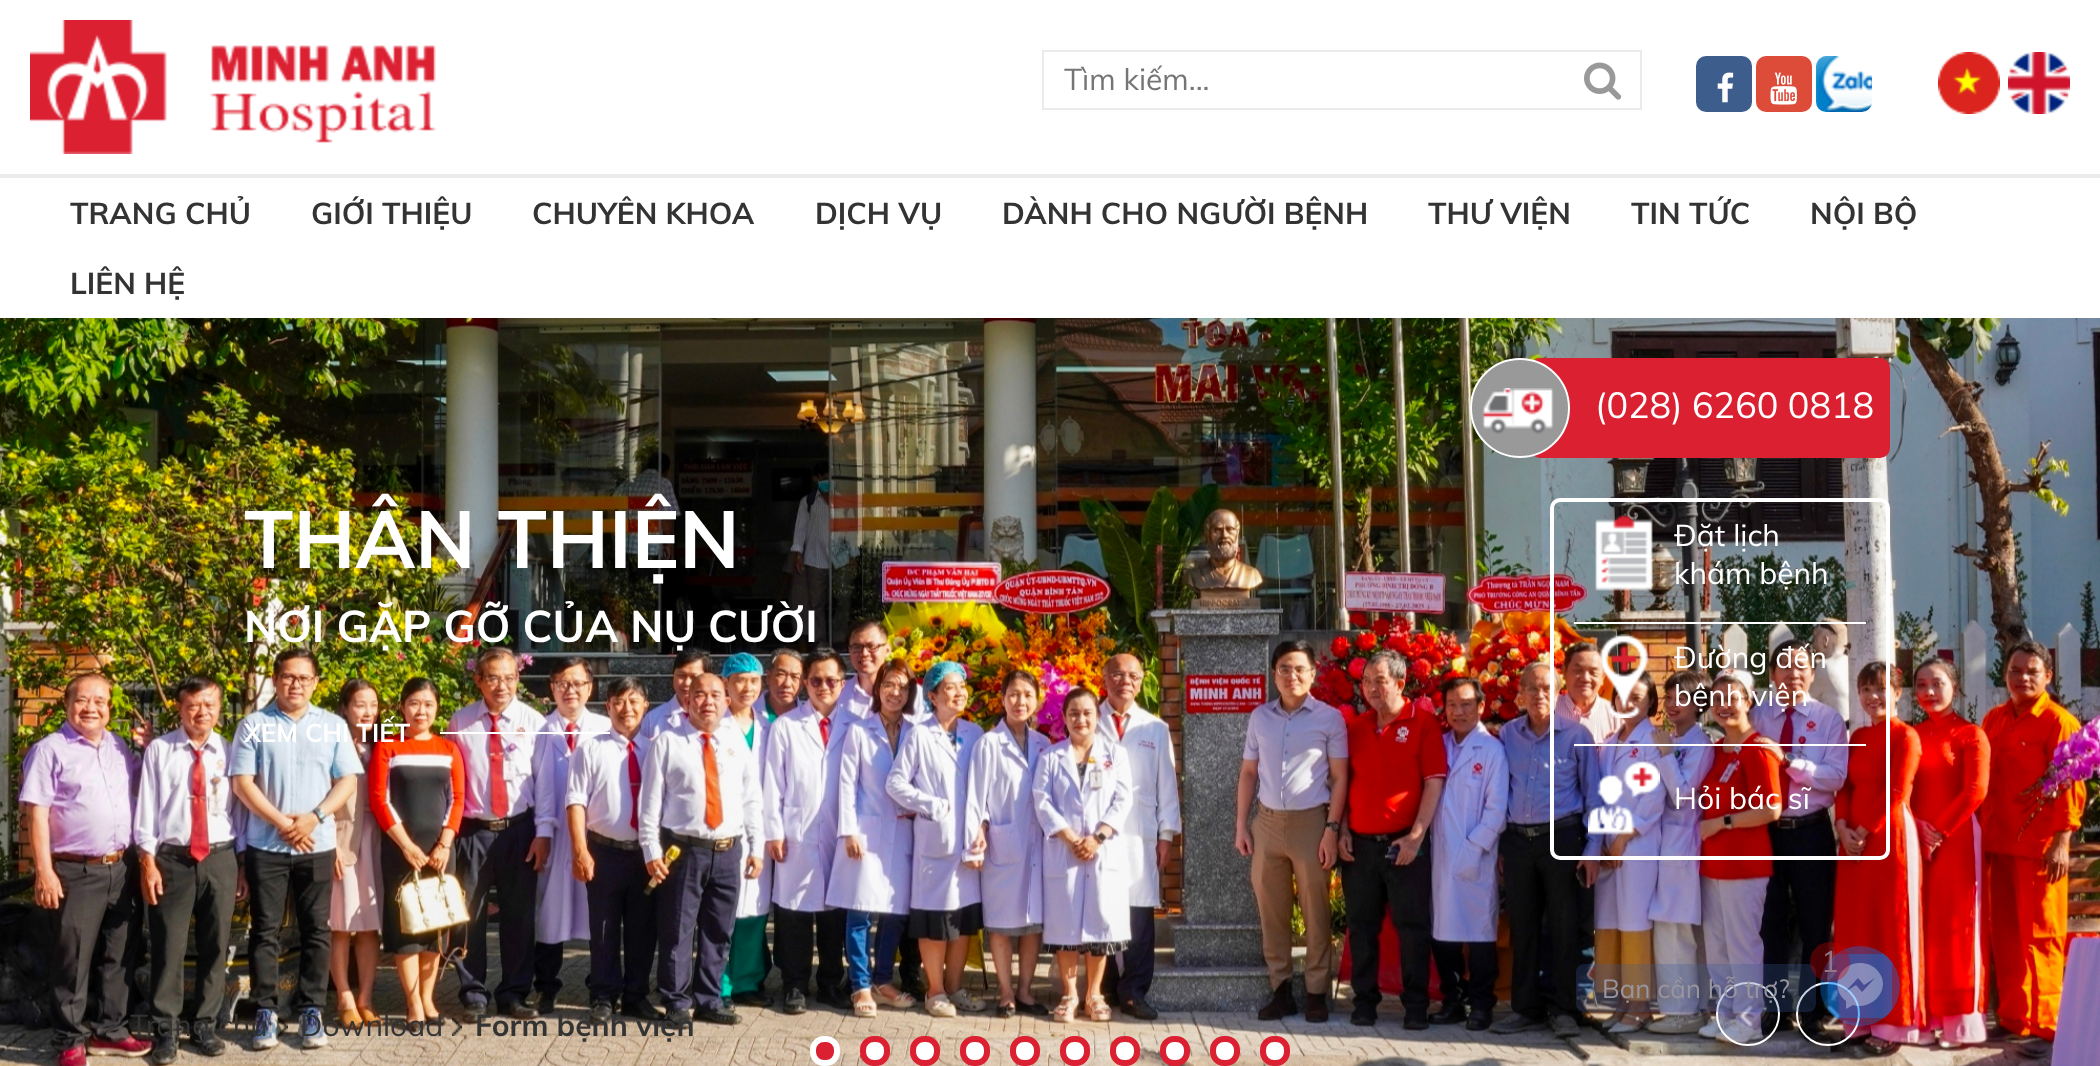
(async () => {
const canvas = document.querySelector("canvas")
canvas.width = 2100
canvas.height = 1066
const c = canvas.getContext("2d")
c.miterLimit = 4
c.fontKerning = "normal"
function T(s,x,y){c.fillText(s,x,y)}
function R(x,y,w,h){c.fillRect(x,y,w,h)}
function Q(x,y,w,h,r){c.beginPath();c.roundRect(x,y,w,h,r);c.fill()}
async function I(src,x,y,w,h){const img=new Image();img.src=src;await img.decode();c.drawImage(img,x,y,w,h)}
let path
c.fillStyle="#fff"
R(0,0,2100,1066)
await I("1.png",30,20,406,134)
c.strokeStyle="#ebebeb"
c.lineWidth=2
c.strokeRect(1043,51,598,58)
c.font="30px Muli"
c.fillStyle="#757575"
T("Tìm kiếm...",1064,90)
await I("2.png",1584,62,38,38)
c.fillStyle="#3d5d8c"
Q(1696,56,56,56,10)
await I("3.png",1717,72,17,31)
c.fillStyle="#dd4b39"
Q(1756,56,56,56,10)
await I("4.png",1770,72,27,33)
await I("5.png",1816,56,56,56)
await I("6.png",1938,52,62,62)
await I("7.png",2008,52,62,62)
c.fillStyle="#ebebeb"
R(0,174,2100,4)
c.font="bold 30px Muli"
c.fillStyle="#333"
T("TRANG CHỦ",70,224)
T("GIỚI THIỆU",311,224)
T("CHUYÊN KHOA",532,224)
T("DỊCH VỤ",815,224)
T("DÀNH CHO NGƯỜI BỆNH",1002,224)
T("THƯ VIỆN",1428,224)
T("TIN TỨC",1631,224)
T("NỘI BỘ",1810,224)
T("LIÊN HỆ",70,294)
await I("8.png",0,318,2100,748)
c.font="bold 80px Muli"
c.fillStyle="#fff"
T("THÂN THIỆN",244,568)
c.font="bold 44px Muli"
T("NƠI GẶP GỠ CỦA NỤ CƯỜI",244,642)
c.font="bold 25.5px Muli"
T("XEM CHI TIẾT",244,742)
R(440,732,170,2)
await I("9.png",1739,1005,14,22)
c.beginPath()
c.arc(1748,1014,31,0,7)
c.strokeStyle="#fff"
c.stroke()
await I("10.png",1827,1005,14,22)
c.beginPath()
c.arc(1828,1014,31,0,7)
c.stroke()
c.fillStyle="#db2032"
c.beginPath()
c.roundRect(813,1039,24,24,11)
c.fill()
c.lineWidth=6
c.stroke()
c.fillStyle="#fff"
c.beginPath()
c.roundRect(863,1039,24,24,11)
c.fill()
c.strokeStyle="#db2032"
c.stroke()
c.beginPath()
c.roundRect(913,1039,24,24,11)
c.fill()
c.stroke()
c.beginPath()
c.roundRect(963,1039,24,24,11)
c.fill()
c.stroke()
c.beginPath()
c.roundRect(1013,1039,24,24,11)
c.fill()
c.stroke()
c.beginPath()
c.roundRect(1063,1039,24,24,11)
c.fill()
c.stroke()
c.beginPath()
c.roundRect(1113,1039,24,24,11)
c.fill()
c.stroke()
c.beginPath()
c.roundRect(1163,1039,24,24,11)
c.fill()
c.stroke()
c.beginPath()
c.roundRect(1213,1039,24,24,11)
c.fill()
c.stroke()
c.beginPath()
c.roundRect(1263,1039,24,24,11)
c.fill()
c.stroke()
c.fillStyle="#db2032"
Q(1530,358,360,100,10)
c.fillStyle="#999"
c.beginPath()
c.arc(1520,408,49,0,7)
c.fill()
c.strokeStyle="#fff"
c.lineWidth=2
c.stroke()
await I("11.png",1482,388,72,46)
c.font="36px Muli"
c.fillStyle="#fff"
T("(028) 6260 0818",1595,418)
c.beginPath()
c.roundRect(1552,500,336,358,8)
c.lineWidth=4
c.stroke()
R(1574,622,292,2)
await I("12.png",1595,515,58,76)
c.font="30px Muli"
T("Đặt lịch",1674,546)
T("khám bệnh",1674,584)
R(1574,744,292,2)
await I("13.png",1599,634,50,84)
T("Đường đến",1674,668)
T("bệnh viện",1674,706)
await I("14.png",1588,761,72,74)
T("Hỏi bác sĩ",1674,809)
await I("15.png",278,1018,10,18)
c.fillStyle="#333"
T("Trang chủ",130,1036)
await I("16.png",452,1018,10,18)
T("Download",300,1036)
c.font="bold 30px Muli"
T("Form bệnh viện",475,1036)
c.fillStyle="#0084ff59"
c.beginPath()
c.arc(1860,986,40,0,7)
c.fill()
c.save()
c.beginPath()
c.roundRect(1820,946,80,80,40)
c.clip()
R(1828,954,64,64)
c.restore()
c.fillStyle="#ffffff59"
path = new Path2D("M1860 963c-21 0-31 25-14 38v8l7-4c21 6 41-19 23-36c-4-4-10-6-16-6zm2 29l-6-7l-11 7l13-14l6 7l11-7z")
c.fill(path)
c.fillStyle="#3b599847"
Q(1576,964,240,48,8)
c.fillStyle="#cc000059"
c.beginPath()
c.arc(1830,962,20,0,7)
c.fill()
c.font="30px Muli"
c.fillStyle="#957586"
T("1",1821,972)
c.font="26px Muli"
c.fillStyle="#99959f"
T("Bạn cần hỗ trợ?",1602,998)
})()
